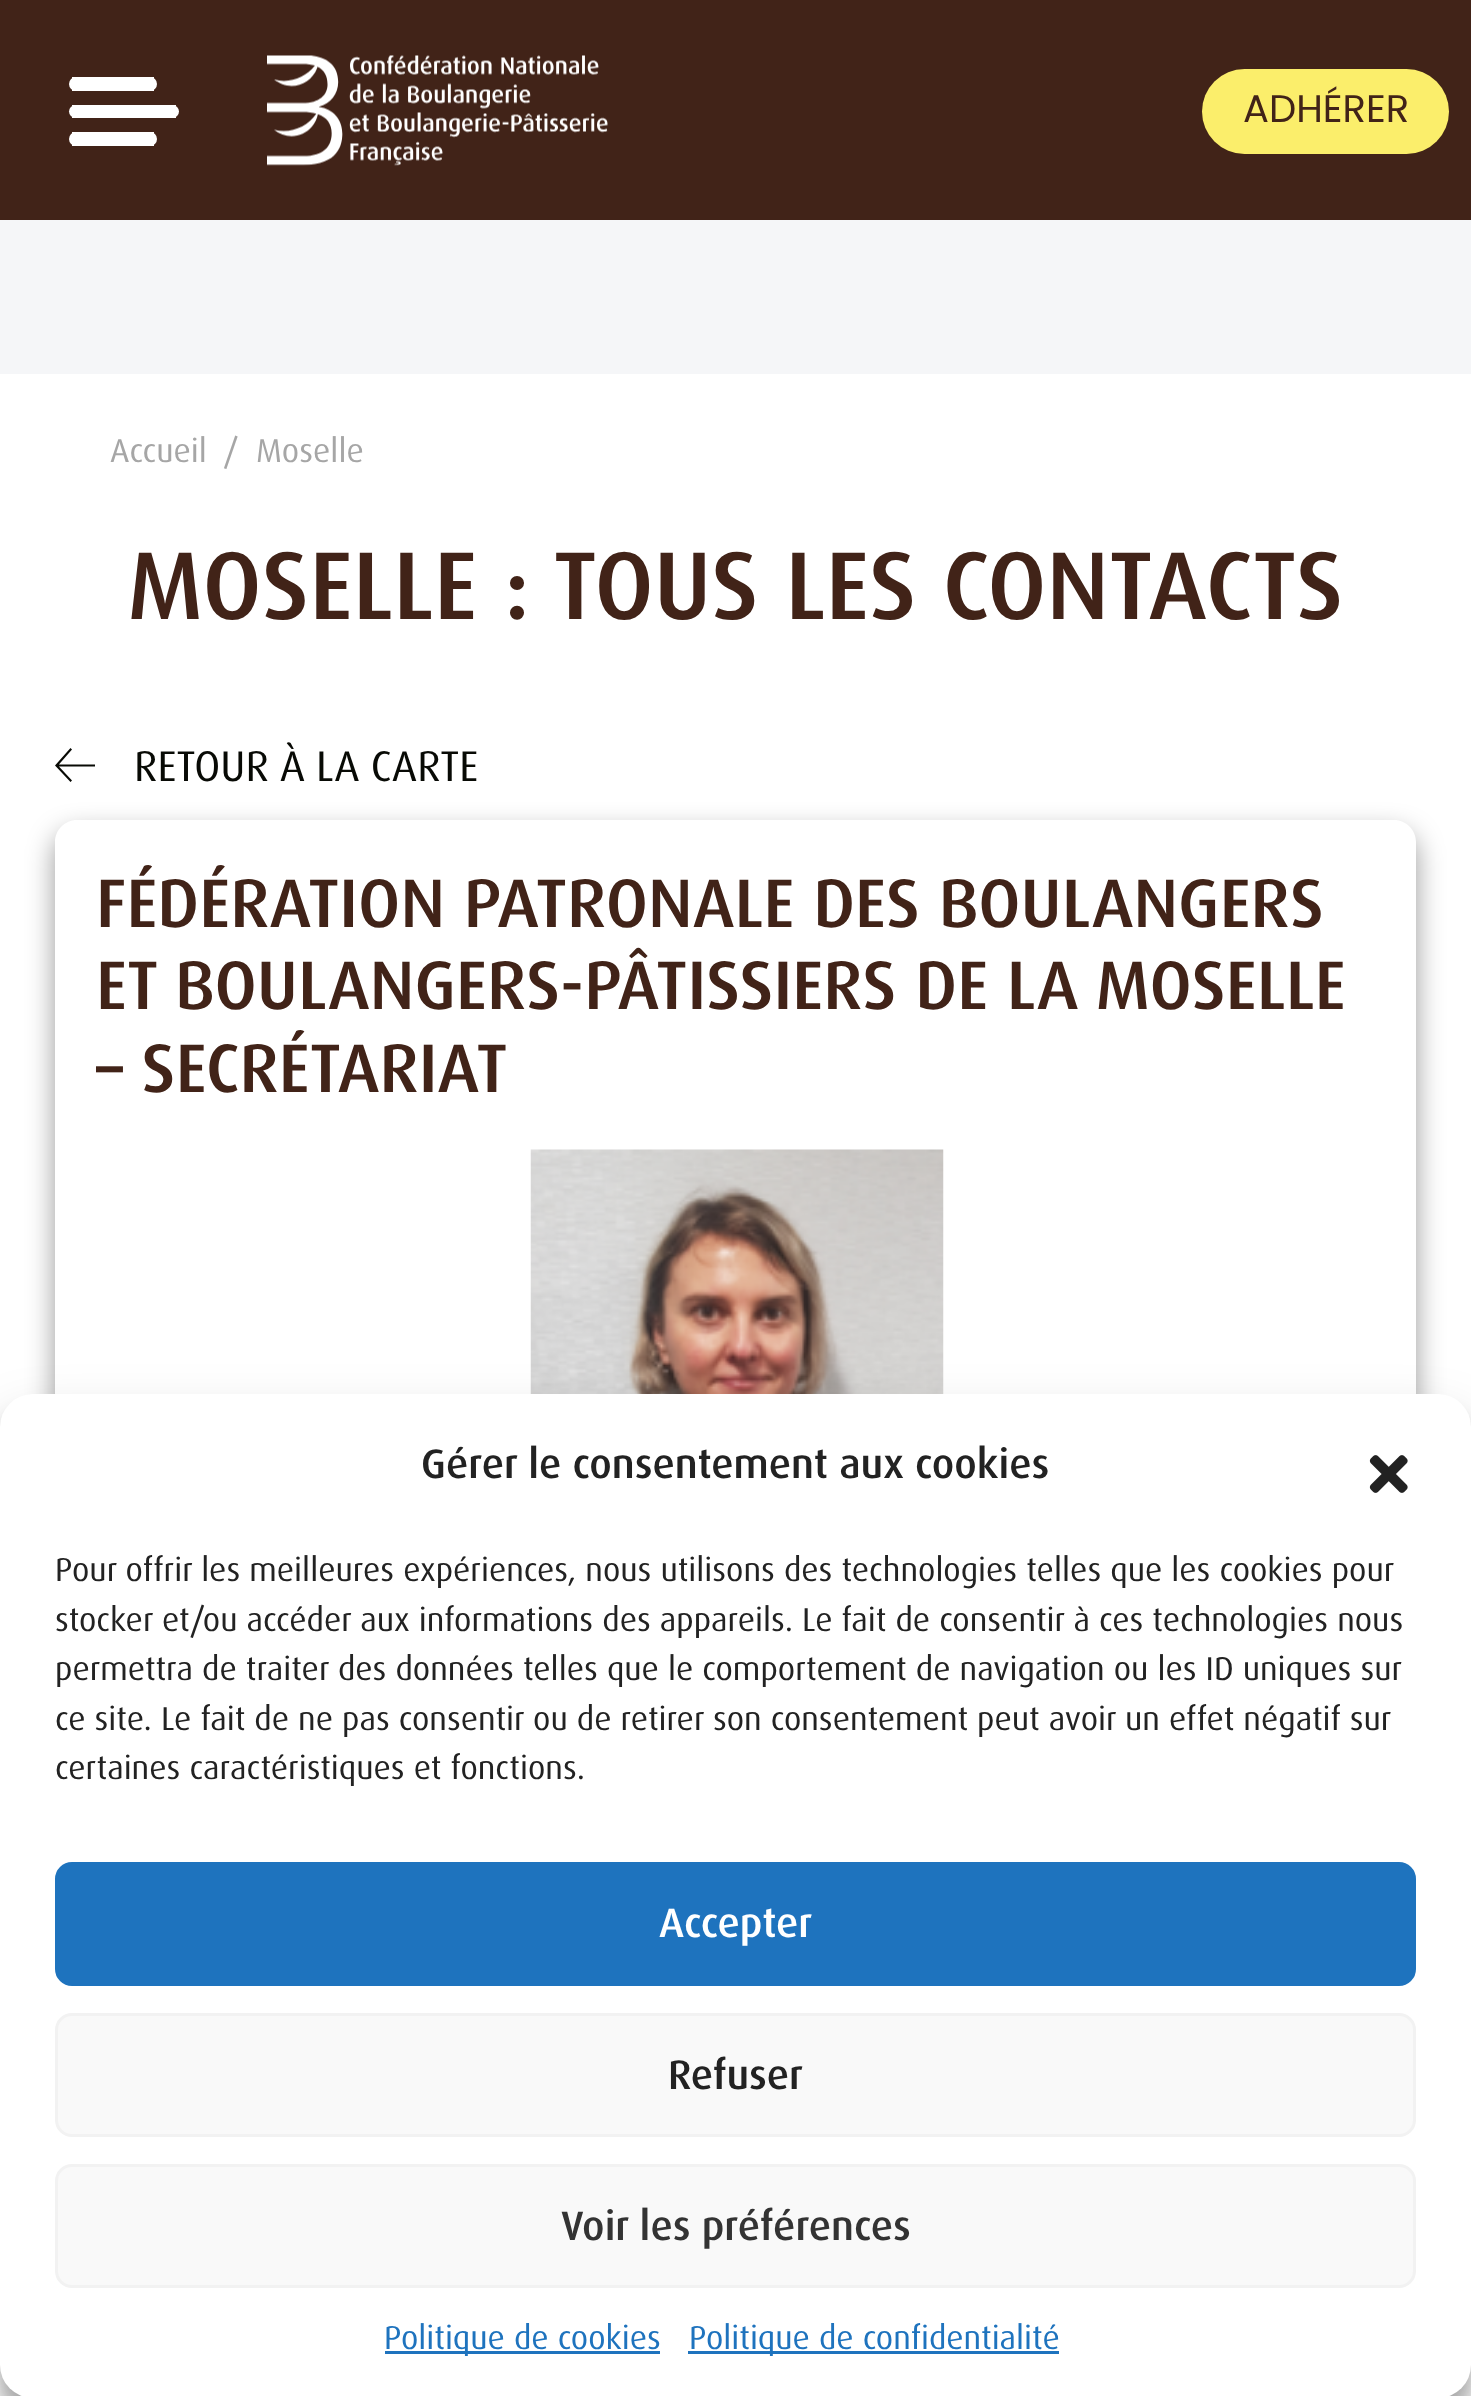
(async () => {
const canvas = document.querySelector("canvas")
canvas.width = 1471
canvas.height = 2396
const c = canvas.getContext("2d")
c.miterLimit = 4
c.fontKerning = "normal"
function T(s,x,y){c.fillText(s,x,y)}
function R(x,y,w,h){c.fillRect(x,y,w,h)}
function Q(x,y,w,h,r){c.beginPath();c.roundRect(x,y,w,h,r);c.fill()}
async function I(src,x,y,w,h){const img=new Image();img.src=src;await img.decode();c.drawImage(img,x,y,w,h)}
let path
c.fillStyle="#f5f6f8"
R(0,0,1471,2396)
c.fillStyle="#412318"
R(0,0,1471,220)
c.fillStyle="#fff"
Q(69,105,110,13,6.5)
R(72,105,104,1)
R(72,117,104,1)
Q(69,77,88,14,7)
R(72,77,82,2)
R(72,89,82,2)
Q(69,132,88,14,7)
R(72,132,82,2)
R(72,144,82,2)
await I("1.png",267,55,341,111)
c.fillStyle="#fbee6b"
Q(1202,69,247,85,42.5)
c.font="38.5px Poppins"
c.fillStyle="#412318"
T("ADHÉRER",1243,122)
c.fillStyle="#fff"
R(0,374,1471,2022)
c.font="33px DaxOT"
c.fillStyle="#a6a6a6"
T("Accueil",110,462)
T("/",224,462)
T("Moselle",256,462)
c.font="500 96.25px DaxOT"
c.fillStyle="#412318"
T("MOSELLE : TOUS LES CONTACTS",127,619)
c.fillStyle="#080a05"
path = new Path2D("M95 766.5h-38v-2h38zm-24.5-18.5l1.5 1.5l-14 16l14 15l-1.5 1.5l-15.5-16.5z")
c.fill(path)
c.font="43px DaxOT"
T("RETOUR À LA CARTE",134,781)
c.save()
path = new Path2D("M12 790h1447v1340h-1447zm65 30h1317c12 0 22 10 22 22v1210c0 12-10 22-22 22h-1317c-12 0-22-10-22-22v-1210c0-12 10-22 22-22z")
c.clip(path,"evenodd")
c.fillStyle="#00000066"
c.filter="blur(14px)"
c.beginPath()
c.roundRect(55,833,1361,1254,22)
c.fill()
c.filter="none"
c.restore()
c.font="500 68.75px DaxOT"
c.fillStyle="#412318"
T("FÉDÉRATION PATRONALE DES BOULANGERS",96,927)
T("ET BOULANGERS-PÂTISSIERS DE LA MOSELLE",96,1009)
T("– SECRÉTARIAT",96,1092)
await I("2.png",530,1149,414,245)
c.fillStyle="#0000003b"
c.filter="blur(8px)"
c.beginPath()
c.roundRect(0,1411,1471,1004,33)
c.fill()
c.filter="none"
c.fillStyle="#00000030"
c.filter="blur(27.5px)"
c.beginPath()
c.roundRect(0,1422,1471,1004,33)
c.fill()
c.filter="none"
c.fillStyle="#fff"
Q(0,1394,1471,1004,33)
c.font="500 41.25px DaxOT"
c.fillStyle="#222"
T("Gérer le consentement aux cookies",421,1478)
await I("3.png",1369,1455,39,38)
c.font="33px DaxOT"
T("Pour offrir les meilleures expériences, nous utilisons des technologies telles que les cookies pour",55,1581)
T("stocker et/ou accéder aux informations des appareils. Le fait de consentir à ces technologies nous",55,1631)
T("permettra de traiter des données telles que le comportement de navigation ou les ID uniques sur",55,1680)
T("ce site. Le fait de ne pas consentir ou de retirer son consentement peut avoir un effet négatif sur",55,1730)
T("certaines caractéristiques et fonctions.",55,1779)
c.fillStyle="#1e73be"
c.beginPath()
c.roundRect(56.5,1863.5,1358,121,15.5)
c.fill()
c.strokeStyle="#1e73be"
c.lineWidth=3
c.stroke()
c.font="500 41.25px DaxOT"
c.fillStyle="#fff"
T("Accepter",659,1937)
c.fillStyle="#f9f9f9"
c.beginPath()
c.roundRect(56.5,2014.5,1358,121,15.5)
c.fill()
c.strokeStyle="#f2f2f2"
c.stroke()
c.fillStyle="#222"
T("Refuser",668,2089)
c.fillStyle="#f9f9f9"
c.beginPath()
c.roundRect(56.5,2165.5,1358,121,15.5)
c.fill()
c.stroke()
c.fillStyle="#333"
T("Voir les préférences",561,2240)
c.fillStyle="#1e73be"
R(385,2351,275,3)
c.font="33px DaxOT"
T("Politique de cookies",384,2349)
R(688,2351,371,3)
T("Politique de confidentialité",689,2349)
})()
